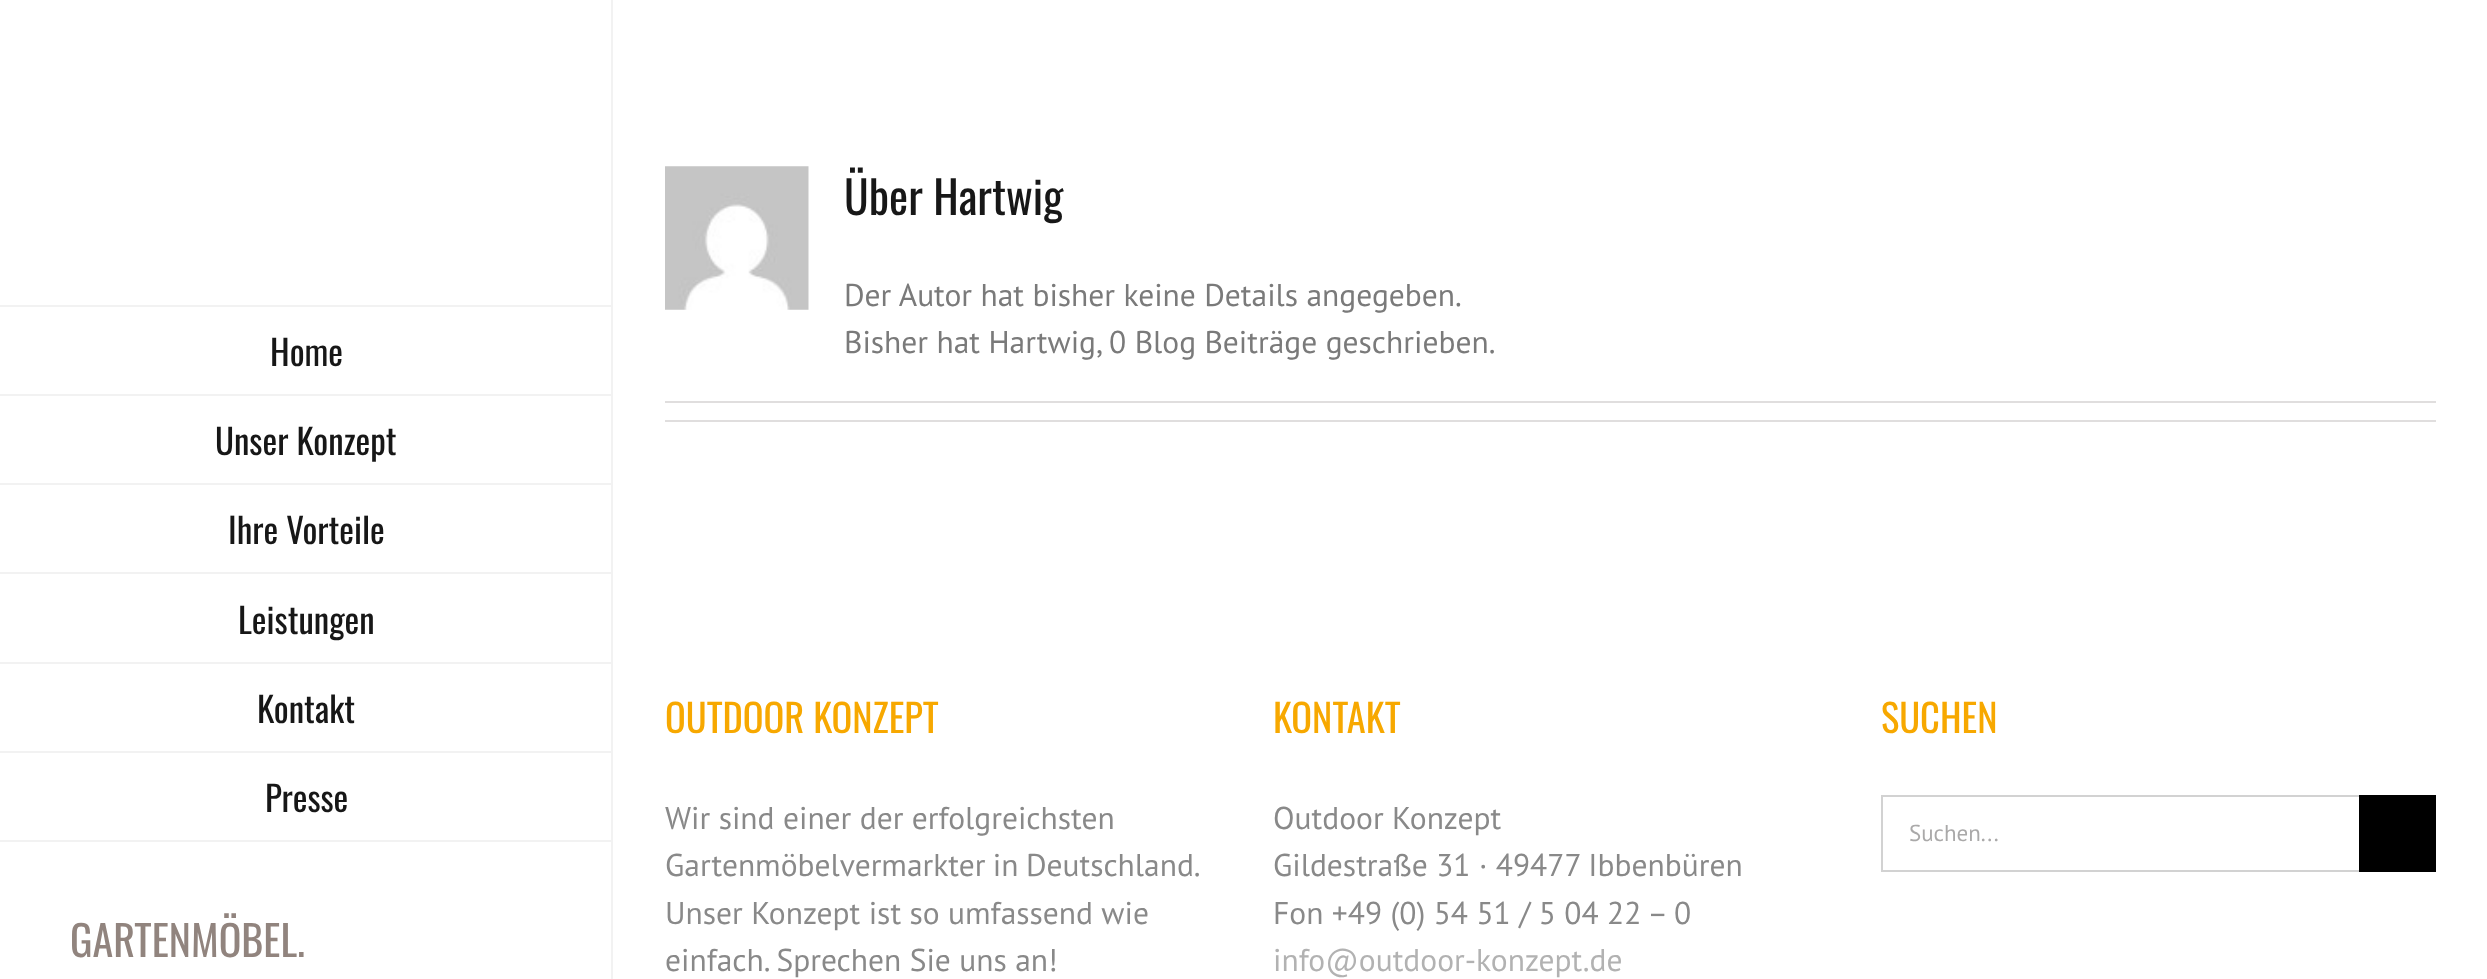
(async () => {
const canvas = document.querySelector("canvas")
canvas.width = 2487
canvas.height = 979
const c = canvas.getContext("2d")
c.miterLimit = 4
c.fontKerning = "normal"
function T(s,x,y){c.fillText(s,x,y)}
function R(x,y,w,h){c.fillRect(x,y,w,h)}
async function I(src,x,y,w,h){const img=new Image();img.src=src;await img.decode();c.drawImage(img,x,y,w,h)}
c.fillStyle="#fff"
R(0,0,2487,979)
await I("1.png",665,166,144,144)
c.font="45.5px Oswald"
c.fillStyle="#171717"
T("Über Hartwig",844,215)
c.font="31.5px PT Sans"
c.fillStyle="#7a7a7a"
T("Der Autor hat bisher keine Details angegeben.",844,306)
T("Bisher hat Hartwig, 0 Blog Beiträge geschrieben.",844,353)
c.fillStyle="#e0dede"
R(665,401,1771,2)
R(665,420,1771,2)
c.fillStyle="#f2f2f2"
R(611,0,2,979)
R(0,305,613,2)
R(0,394,613,2)
c.font="35px Oswald"
c.fillStyle="#171717"
T("Home",270,366)
c.fillStyle="#f2f2f2"
R(0,483,613,2)
c.fillStyle="#171717"
T("Unser Konzept",215,455)
c.fillStyle="#f2f2f2"
R(0,572,613,2)
c.fillStyle="#171717"
T("Ihre Vorteile",228,544)
c.fillStyle="#f2f2f2"
R(0,662,613,2)
c.fillStyle="#171717"
T("Leistungen",238,634)
c.fillStyle="#f2f2f2"
R(0,751,613,2)
c.fillStyle="#171717"
T("Kontakt",257,723)
c.fillStyle="#f2f2f2"
R(0,840,613,2)
c.fillStyle="#171717"
T("Presse",265,812)
c.font="42px Oswald"
c.fillStyle="#91847e"
T("GARTENMÖBEL.",70,957)
c.font="38.5px Oswald"
c.fillStyle="#f7a800"
T("OUTDOOR KONZEPT",665,733)
c.font="31.5px PT Sans"
c.fillStyle="#898989"
T("Wir sind einer der erfolgreichsten",665,829)
c.wordSpacing="-1px"
T("Gartenmöbelvermarkter in Deutschland.",665,876)
c.wordSpacing="0px"
T("Unser Konzept ist so umfassend wie",665,924)
T("einfach. Sprechen Sie uns an!",665,971)
c.font="38.5px Oswald"
c.fillStyle="#f7a800"
T("KONTAKT",1273,733)
c.font="31.5px PT Sans"
c.fillStyle="#898989"
T("Outdoor Konzept",1273,829)
T("Gildestraße 31 · 49477 Ibbenbüren",1273,876)
T("Fon +49 (0) 54 51 / 5 04 22 – 0",1273,924)
c.fillStyle="#b2b2b2"
T("info@outdoor-konzept.de",1273,971)
c.font="38.5px Oswald"
c.fillStyle="#f7a800"
T("SUCHEN",1881,733)
c.fillStyle="#d2d2d2"
R(1881,795,478,2)
R(1881,870,478,2)
R(1881,795,2,77)
c.font="23px PT Sans"
c.fillStyle="#aaa9a9"
T("Suchen...",1909,841)
c.fillStyle="#000"
R(2359,795,77,77)
})()
